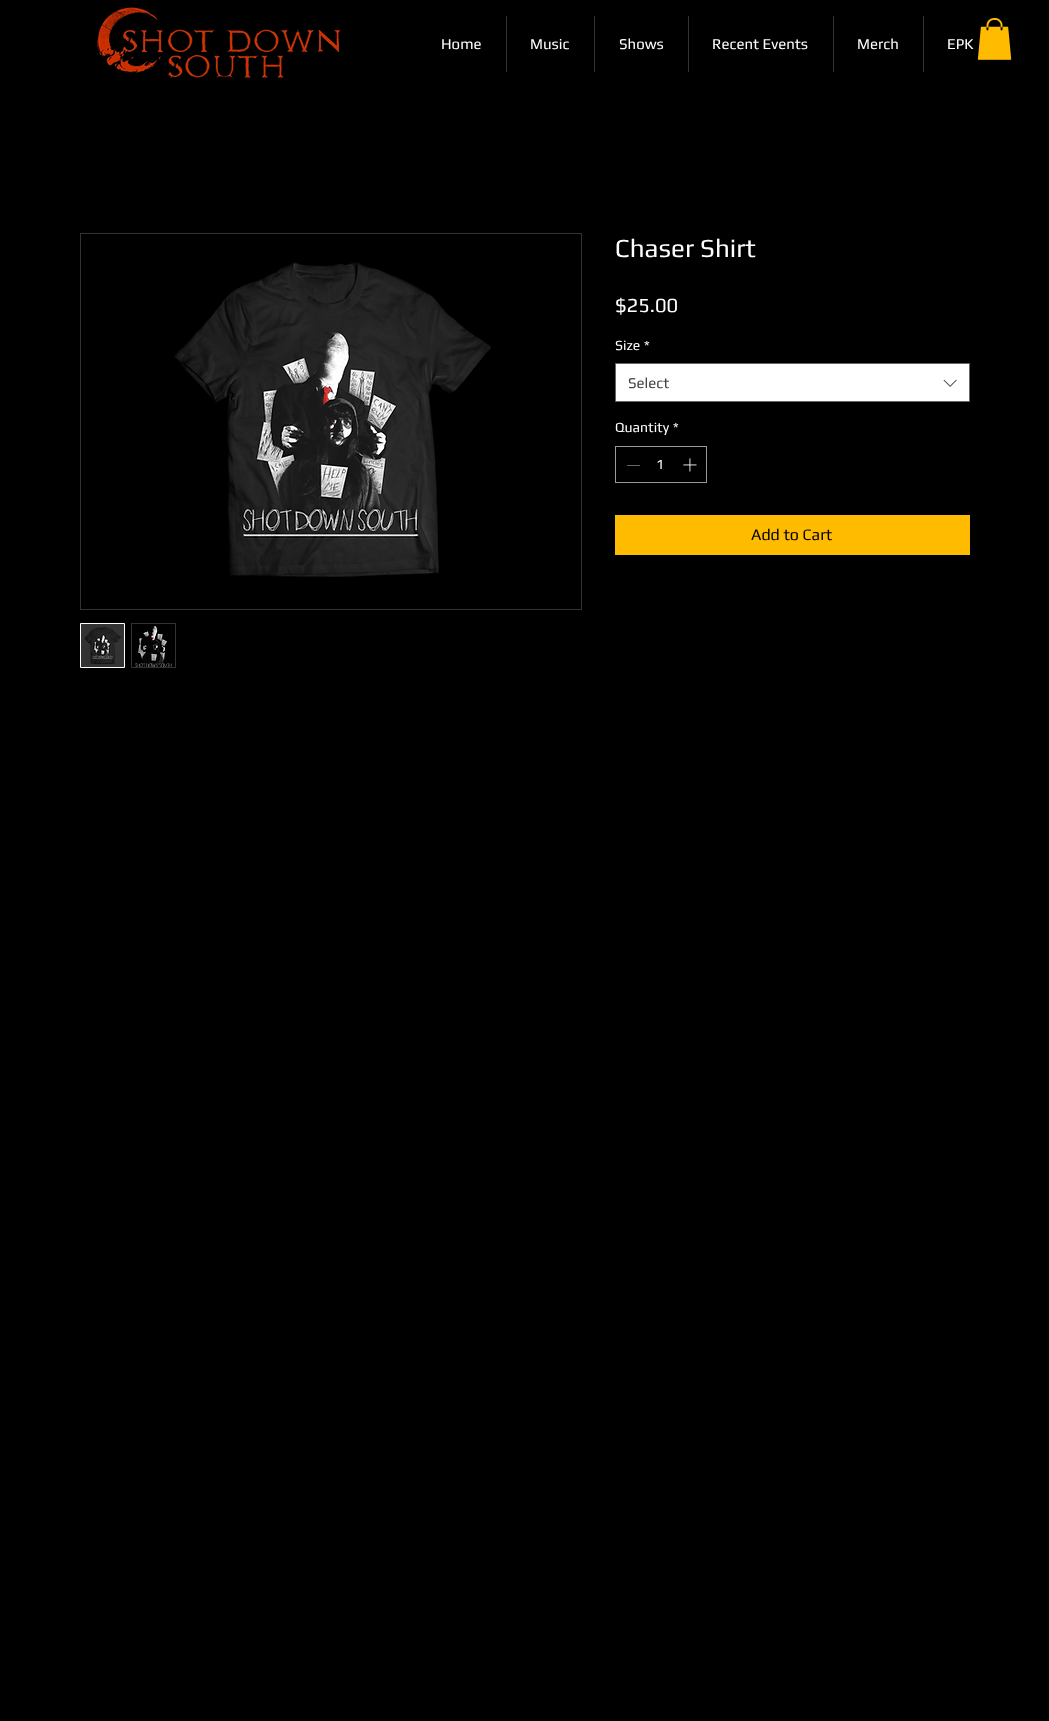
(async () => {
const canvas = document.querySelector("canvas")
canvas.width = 1049
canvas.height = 1721
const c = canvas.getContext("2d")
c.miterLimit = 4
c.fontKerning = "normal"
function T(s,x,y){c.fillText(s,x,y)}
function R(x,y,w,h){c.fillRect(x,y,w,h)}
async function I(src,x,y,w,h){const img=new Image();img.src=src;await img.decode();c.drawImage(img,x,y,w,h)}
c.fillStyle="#000"
R(0,0,1049,1721)
await I("1.png",96,7,244,72)
c.font="15px Play"
c.fillStyle="#fff"
T("Home",441,49)
c.fillStyle="#333"
R(506,16,1,56)
c.fillStyle="#fff"
T("Music",530,49)
c.fillStyle="#333"
R(594,16,1,56)
c.fillStyle="#fff"
T("Shows",619,49)
c.fillStyle="#333"
R(688,16,1,56)
c.fillStyle="#fff"
T("Recent Events",712,49)
c.fillStyle="#333"
R(833,16,1,56)
c.fillStyle="#fff"
T("Merch",857,49)
c.fillStyle="#333"
R(923,16,1,56)
c.fillStyle="#fff"
T("EPK",947,49)
await I("2.png",977,18,35,42)
c.strokeStyle="#333"
c.strokeRect(80.5,233.5,501,376)
await I("3.png",174,262,317,315)
c.fillStyle="#333"
c.beginPath()
c.rect(80.5,623.5,44,44)
c.fill()
c.strokeStyle="#fff"
c.stroke()
await I("4.png",84,627,37,38)
R(131,623,45,45)
await I("5.png",132,624,43,43)
c.font="26px Play"
c.fillStyle="#fff"
T("Chaser Shirt",615,257)
c.font="20px Play"
T("$25.00",615,312)
c.font="14px Play"
T("Size",615,350)
T("*",644,350)
c.beginPath()
c.rect(615.5,363.5,354,38)
c.fill()
c.strokeStyle="#666"
c.stroke()
c.font="15px Play"
c.fillStyle="#444"
T("Select",628,388)
await I("6.png",943,379,14,8)
c.font="14px Play"
c.fillStyle="#fff"
T("Quantity",615,432)
T("*",673,432)
c.strokeStyle="#999"
c.strokeRect(615.5,446.5,91,36)
c.fillStyle="#646464"
R(627,465,13,1)
c.fillStyle="#fff"
T("1",656,469)
await I("7.png",683,458,14,14)
c.fillStyle="#fb0"
R(615,515,355,40)
c.font="16px Play"
c.fillStyle="#000"
T("Add to Cart",751,540)
})()
